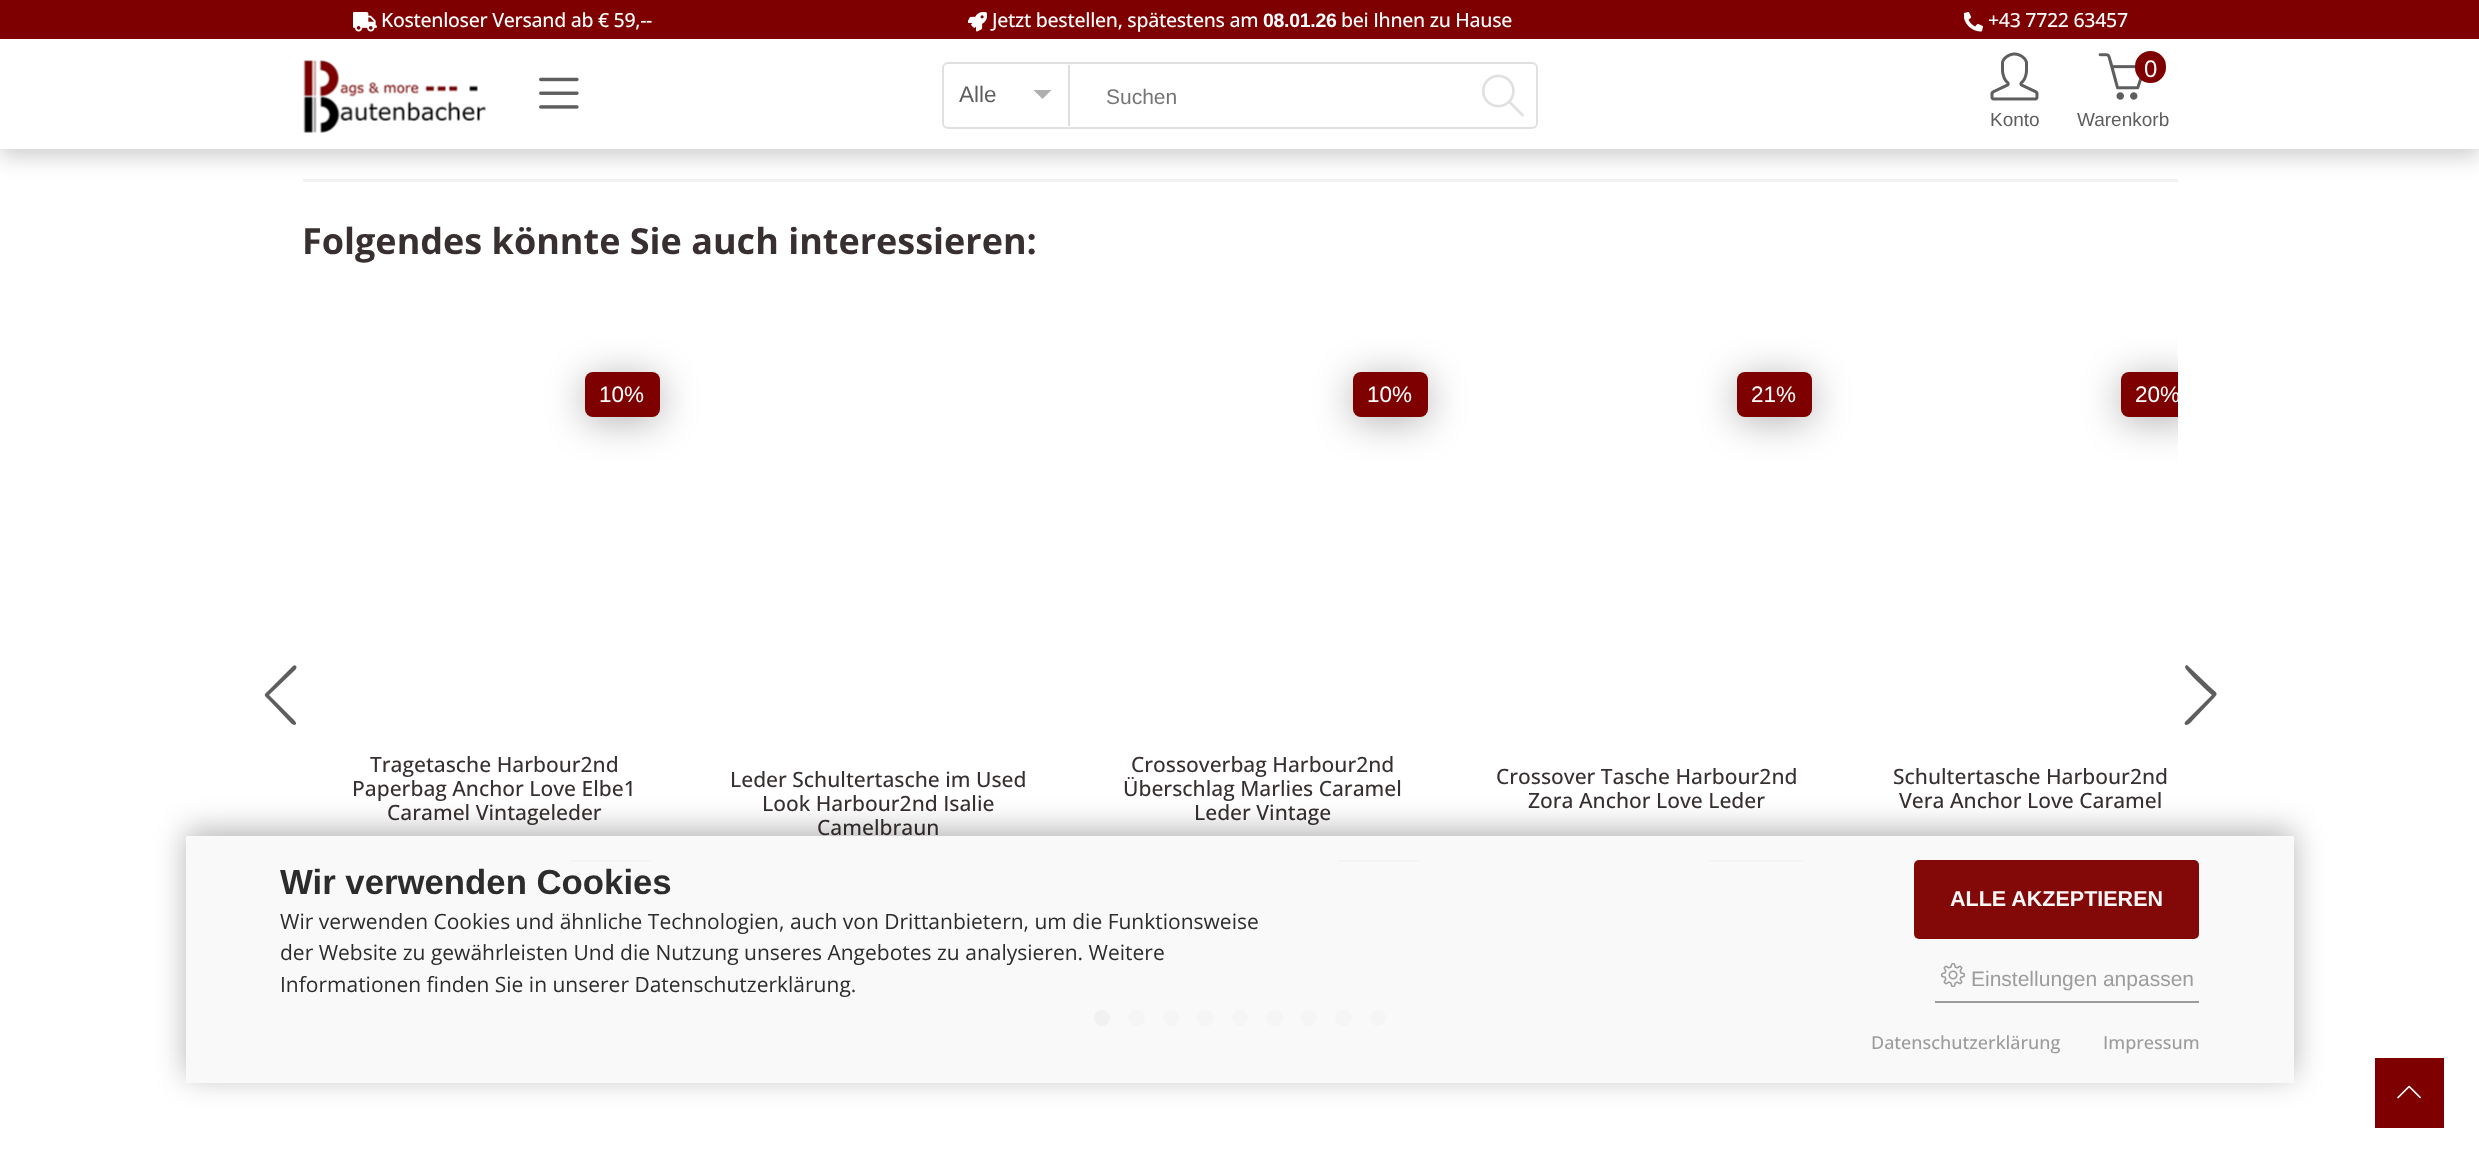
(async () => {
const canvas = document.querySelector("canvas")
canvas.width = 2479
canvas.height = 1157
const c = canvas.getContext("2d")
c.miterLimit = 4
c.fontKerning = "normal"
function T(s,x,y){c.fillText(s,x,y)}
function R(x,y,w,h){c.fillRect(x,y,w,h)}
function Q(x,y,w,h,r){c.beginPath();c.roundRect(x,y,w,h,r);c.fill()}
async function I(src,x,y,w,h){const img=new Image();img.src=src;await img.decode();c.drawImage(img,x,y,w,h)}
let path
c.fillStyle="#fff"
R(0,0,2479,1157)
c.fillStyle="#f2f2f2"
R(303,179,1875,3)
c.fillStyle="#00000033"
c.filter="blur(11px)"
c.beginPath()
c.rect(0,8,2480,148)
c.fill()
c.filter="none"
c.fillStyle="#fff"
R(0,39,2479,110)
c.fillStyle="#7f0000"
R(0,0,2479,39)
await I("1.png",353,12,24,20)
c.letterSpacing="-0.3px"
c.font="500 19.5px Open Sans"
c.fillStyle="#fff"
T("Kostenloser Versand ab € 59,--",381,27)
await I("2.png",968,12,19,20)
T("Jetzt bestellen, spätestens am",992,27)
c.font="bold 19.5px Liberation Sans"
T("08.01.26",1263,27)
c.font="500 19.5px Open Sans"
T("bei Ihnen zu Hause",1341,27)
await I("3.png",1964,12,19,20)
T("+43 7722 63457",1988,27)
await I("4.png",303,60,184,73)
await I("5.png",539,77,40,32)
c.beginPath()
c.roundRect(943,63,594,65,5)
c.strokeStyle="#e0e0e0"
c.lineWidth=2
c.stroke()
c.fillStyle="#dedede"
R(1068,65,2,61)
c.letterSpacing="0px"
c.font="22.5px Liberation Sans"
c.fillStyle="#5e5e5e"
T("Alle",959,102)
c.fillStyle="#afafaf"
path = new Path2D("M1033.5 90h18l-9 9z")
c.fill(path)
c.font="21px Liberation Sans"
c.fillStyle="#757575"
T("Suchen",1106,104)
await I("6.png",1482,74,42,43)
await I("7.png",1990,52,49,49)
c.font="19px Liberation Sans"
c.fillStyle="#5e5e5e"
T("Konto",1990,126)
await I("8.png",2098,53,44,47)
c.fillStyle="#7f0000"
c.beginPath()
c.roundRect(2136,52,29,30,14.5)
c.fill()
c.strokeStyle="#7f0000"
c.stroke()
c.font="24px Liberation Sans"
c.fillStyle="#fff"
T("0",2144,77)
c.font="19px Liberation Sans"
c.fillStyle="#5e5e5e"
T("Warenkorb",2077,126)
c.font="bold 36px Open Sans"
c.fillStyle="#383030"
T("Folgendes könnte Sie auch interessieren:",302,254)
c.fillStyle="#0000004d"
c.filter="blur(19px)"
c.beginPath()
c.roundRect(585,377,75,45,8)
c.fill()
c.filter="none"
c.fillStyle="#7f0000"
Q(585,372,75,45,8)
c.font="22.5px Liberation Sans"
c.fillStyle="#fff"
T("10%",599,402)
c.fillStyle="#000000a1"
R(570,860,81,2)
c.font="500 21px Open Sans"
c.fillStyle="#383030"
T("Tragetasche Harbour2nd",370,772)
T("Paperbag Anchor Love Elbe1",352,796)
T("Caramel Vintageleder",387,820)
T("Leder Schultertasche im Used",730,787)
T("Look Harbour2nd Isalie",762,811)
T("Camelbraun",817,835)
c.fillStyle="#0000004d"
c.filter="blur(19px)"
c.beginPath()
c.roundRect(1353,377,75,45,8)
c.fill()
c.filter="none"
c.fillStyle="#7f0000"
Q(1353,372,75,45,8)
c.font="22.5px Liberation Sans"
c.fillStyle="#fff"
T("10%",1367,402)
c.fillStyle="#000000a1"
R(1338,860,81,2)
c.font="500 21px Open Sans"
c.fillStyle="#383030"
T("Crossoverbag Harbour2nd",1131,772)
T("Überschlag Marlies Caramel",1123,796)
T("Leder Vintage",1194,820)
c.fillStyle="#0000004d"
c.filter="blur(19px)"
c.beginPath()
c.roundRect(1737,377,75,45,8)
c.fill()
c.filter="none"
c.fillStyle="#7f0000"
Q(1737,372,75,45,8)
c.font="22.5px Liberation Sans"
c.fillStyle="#fff"
T("21%",1751,402)
c.fillStyle="#000000a1"
R(1709,860,94,2)
c.font="500 21px Open Sans"
c.fillStyle="#383030"
T("Crossover Tasche Harbour2nd",1496,784)
T("Zora Anchor Love Leder",1528,808)
c.save()
c.beginPath()
c.rect(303,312,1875,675)
c.clip()
c.fillStyle="#0000004d"
c.filter="blur(19px)"
c.beginPath()
c.roundRect(2121,377,75,45,8)
c.fill()
c.filter="none"
c.restore()
c.fillStyle="#7f0000"
c.beginPath()
c.roundRect(2121,372,57,45,[8,0,0,8])
c.fill()
c.save()
c.beginPath()
c.rect(303,312,1875,675)
c.clip()
c.font="22.5px Liberation Sans"
c.fillStyle="#fff"
T("20%",2135,402)
c.restore()
c.fillStyle="#000000a1"
R(2106,860,72,2)
c.fillStyle="#383030"
T("Schultertasche Harbour2nd",1893,784)
T("Vera Anchor Love Caramel",1899,808)
c.fillStyle="#5e5e5e"
path = new Path2D("M293 666c1-1 2-1 3 0c2 2-2 5-4 7l-23 22l22 22c1 1 6 5 5 7c-2 3-5-1-8-4l-18-19c-7-7-7-5 0-12z")
c.fill(path)
path = new Path2D("M2186 725c-1 0-2-2-1-3l27-27c-4-3-27-25-27-28c0-1 1-2 2-2l20 19c11 11 13 8 4 17l-18 19c-2 2-4 5-7 5z")
c.fill(path)
c.fillStyle="#1a1a1a"
c.beginPath()
c.arc(1102,1018,8,0,7)
c.fill()
c.fillStyle="#808080"
Q(1128,1010,17,16,8)
c.beginPath()
c.arc(1171,1018,8,0,7)
c.fill()
Q(1197,1010,17,16,8)
c.beginPath()
c.arc(1240,1018,8,0,7)
c.fill()
Q(1266,1010,17,16,8)
c.beginPath()
c.arc(1309,1018,8,0,7)
c.fill()
Q(1335,1010,17,16,8)
c.beginPath()
c.arc(1378,1018,8,0,7)
c.fill()
c.save()
path = new Path2D("M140 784h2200v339h-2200zm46 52h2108v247h-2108z")
c.clip(path,"evenodd")
c.fillStyle="#0000004a"
c.filter="blur(15px)"
c.beginPath()
c.rect(186,830,2108,247)
c.fill()
c.filter="none"
c.restore()
c.fillStyle="#f9f9f9f7"
R(186,836,2108,247)
c.font="bold 34.75px Liberation Sans"
c.fillStyle="#2c2c2c"
T("Wir verwenden Cookies",280,894)
c.font="21px Open Sans"
T("Wir verwenden Cookies und ähnliche Technologien, auch von Drittanbietern, um die Funktionsweise",280,929)
T("der Website zu gewährleisten Und die Nutzung unseres Angebotes zu analysieren. Weitere",280,960)
T("Informationen finden Sie in unserer Datenschutzerklärung.",280,992)
c.fillStyle="#7f0000f7"
Q(1914,860,285,79,5)
c.font="bold 21.5px Liberation Sans"
c.fillStyle="#fbf8f8"
T("ALLE AKZEPTIEREN",1950,906)
c.fillStyle="#9c9c9c"
R(1935,1001,264,2)
await I("9.png",1941,963,24,24)
c.font="21px Liberation Sans"
T("Einstellungen anpassen",1971,986)
c.font="500 18px Open Sans"
T("Datenschutzerklärung",1871,1049)
T("Impressum",2103,1049)
c.fillStyle="#7f0000"
R(2375,1058,69,70)
await I("10.png",2397,1085,24,14)
})()
